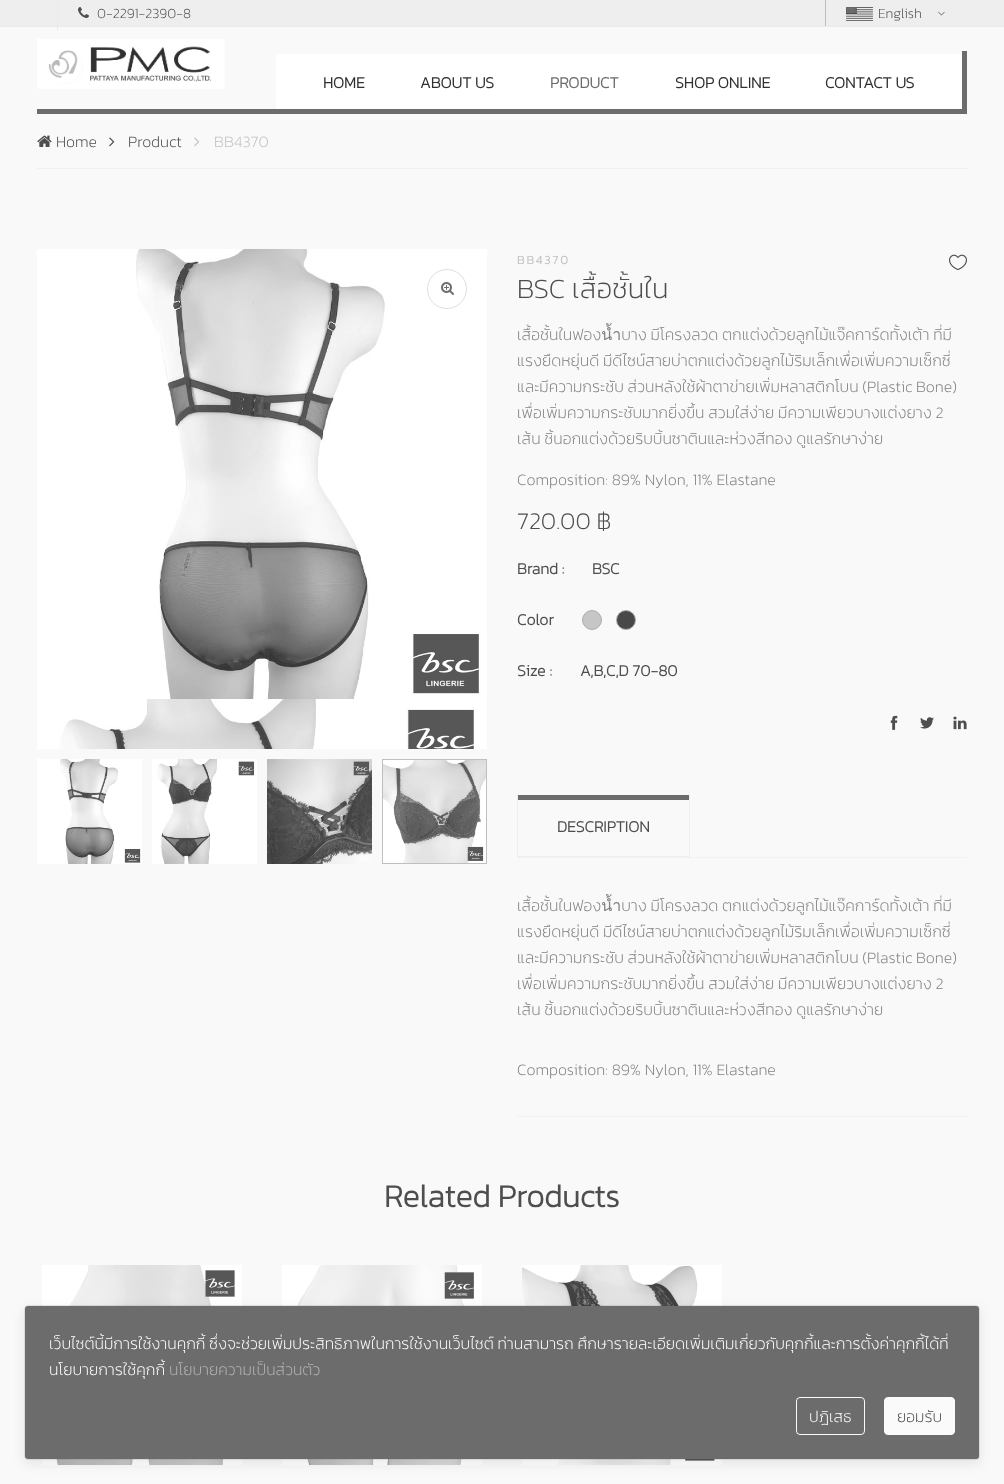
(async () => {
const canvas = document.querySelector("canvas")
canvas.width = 1004
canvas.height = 1484
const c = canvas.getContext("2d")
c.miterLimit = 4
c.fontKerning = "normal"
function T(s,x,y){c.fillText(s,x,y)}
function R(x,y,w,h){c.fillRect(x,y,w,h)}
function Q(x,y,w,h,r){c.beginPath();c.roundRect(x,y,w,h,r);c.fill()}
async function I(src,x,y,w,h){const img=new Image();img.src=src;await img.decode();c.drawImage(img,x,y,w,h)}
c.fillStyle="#f9f9f9"
R(0,0,1004,1484)
c.fillStyle="#eee"
R(0,0,1004,26)
c.fillStyle="#eaeaea"
R(0,26,1004,1)
R(57,0,1,30)
await I("1.png",78,7,11,11)
c.font="200 14px Kanit"
c.fillStyle="#4e4e4e"
T("0-2291-2390-8",97,18)
c.fillStyle="#bdbdbd"
R(825,0,1,26)
await I("2.png",846,7,27,14)
c.fillStyle="#4e4e4e"
T("English",878,18)
await I("3.png",938,11,7,5)
await I("4.png",37,51,930,63)
await I("5.png",37,39,188,50)
c.fillStyle="#fff"
R(276,54,686,55)
c.font="bold 16px Kanit"
c.fillStyle="#303030"
T("HOME",323,88)
T("ABOUT US",420,88)
c.fillStyle="#6c6c6c"
T("PRODUCT",550,88)
c.fillStyle="#303030"
T("SHOP ONLINE",675,88)
T("CONTACT US",825,88)
c.fillStyle="#efefef"
R(37,168,930,1)
await I("6.png",37,135,15,12)
c.font="200 16px Kanit"
c.fillStyle="#4e4e4e"
T("Home",56,147)
await I("7.png",109,137,6,10)
T("Product",128,147)
await I("8.png",194,137,6,10)
c.fillStyle="#c1c1c1"
T("BB4370",214,147)
await I("9.png",37,249,450,450)
c.beginPath()
c.arc(447,289,19.5,0,7)
c.strokeStyle="#dfdfdf"
c.stroke()
await I("10.png",441,282,13,13)
await I("11.png",37,699,450,50)
await I("12.png",37,759,105,105)
await I("13.png",152,759,105,105)
await I("14.png",267,759,105,105)
await I("15.png",383,760,103,103)
c.strokeStyle="#bfbfbf"
c.strokeRect(382.5,759.5,104,104)
c.letterSpacing="2px"
c.font="bold 12px Kanit"
T("BB4370",517,264)
await I("16.png",949,254,18,17)
c.letterSpacing="0px"
c.font="200 28px Kanit"
c.fillStyle="#4e4e4e"
T("BSC เสื้อชั้นใน",517,298)
c.font="200 16px Kanit"
c.fillStyle="#818181"
T("เสื้อชั้นในฟองน้ำบาง มีโครงลวด ตกแต่งด้วยลูกไม้แจ๊คการ์ดทั้งเต้า ที่มี",517,340)
T("แรงยืดหยุ่นดี มีดีไซน์สายบ่าตกแต่งด้วยลูกไม้ริมเล็กเพื่อเพิ่มความเซ็กซี่",517,366)
T("และมีความกระชับ ส่วนหลังใช้ผ้าตาข่ายเพิ่มหลาสติกโบน (Plastic Bone)",517,392)
T("เพื่อเพิ่มความกระชับมากยิ่งขึ้น สวมใส่ง่าย มีความเพียวบางแต่งยาง 2",517,418)
T("เส้น ชิ้นอกแต่งด้วยริบบิ้นซาตินและห่วงสีทอง ดูแลรักษาง่าย",517,444)
T("Composition: 89% Nylon, 11% Elastane",517,485)
c.font="200 24px Kanit"
c.fillStyle="#4e4e4e"
T("720.00 ฿",517,529)
c.font="bold 16px Kanit"
T("Brand :",517,574)
T("BSC",592,574)
T("Color",517,625)
c.fillStyle="#c6c6c6"
c.beginPath()
c.arc(592,620,9.5,0,7)
c.fill()
c.strokeStyle="#adadad"
c.stroke()
c.fillStyle="#484848"
c.beginPath()
c.arc(626,620,9.5,0,7)
c.fill()
c.stroke()
c.fillStyle="#4e4e4e"
T("Size :",517,676)
T("A,B,C,D 70-80",580,676)
await I("17.png",890,715,8,15)
await I("18.png",920,717,14,12)
await I("19.png",953,716,14,14)
c.strokeStyle="#efefef"
c.strokeRect(517.5,795.5,172,61)
c.fillStyle="#6c6c6c"
R(518,795,171,5)
c.fillStyle="#4e4e4e"
T("DESCRIPTION",557,832)
c.fillStyle="#f1f1f1"
R(517,857,450,1)
R(517,1116,450,1)
c.font="200 16px Kanit"
c.fillStyle="#818181"
T("เสื้อชั้นในฟองน้ำบาง มีโครงลวด ตกแต่งด้วยลูกไม้แจ๊คการ์ดทั้งเต้า ที่มี",517,911)
T("แรงยืดหยุ่นดี มีดีไซน์สายบ่าตกแต่งด้วยลูกไม้ริมเล็กเพื่อเพิ่มความเซ็กซี่",517,937)
T("และมีความกระชับ ส่วนหลังใช้ผ้าตาข่ายเพิ่มหลาสติกโบน (Plastic Bone)",517,963)
T("เพื่อเพิ่มความกระชับมากยิ่งขึ้น สวมใส่ง่าย มีความเพียวบางแต่งยาง 2",517,989)
T("เส้น ชิ้นอกแต่งด้วยริบบิ้นซาตินและห่วงสีทอง ดูแลรักษาง่าย",517,1015)
T("Composition: 89% Nylon, 11% Elastane",517,1075)
c.font="bold 32px Kanit"
c.fillStyle="#4e4e4e"
T("Related Products",384,1207)
await I("20.png",42,1265,200,200)
await I("21.png",282,1265,200,200)
await I("22.png",522,1265,200,200)
c.fillStyle="#3030301a"
c.filter="blur(6px)"
c.beginPath()
c.roundRect(24,1309,956,155,4)
c.fill()
c.filter="none"
c.fillStyle="#6c6c6c"
Q(25,1306,954,153,3)
c.beginPath()
c.roundRect(24.5,1305.5,955,154,3.5)
c.strokeStyle="#3030301a"
c.stroke()
c.font="200 16px Kanit"
c.fillStyle="#fff"
T("เว็บไซต์นี้มีการใช้งานคุกกี้ ซึ่งจะช่วยเพิ่มประสิทธิภาพในการใช้งานเว็บไซต์ ท่านสามารถ ศึกษารายละเอียดเพิ่มเติมเกี่ยวกับคุกกี้และการตั้งค่าคุกกี้ได้ที่",49,1349)
T("นโยบายการใช้คุกกี้",49,1375)
c.fillStyle="#b4b4b4"
T("นโยบายความเป็นส่วนตัว",169,1375)
c.beginPath()
c.roundRect(796.5,1397.5,68,37,3.5)
c.strokeStyle="#fafafa"
c.stroke()
c.fillStyle="#fff"
T("ปฎิเสธ",809,1422)
c.fillStyle="#fafafa"
c.beginPath()
c.roundRect(884.5,1397.5,70,37,3.5)
c.fill()
c.stroke()
c.fillStyle="#4e4e4e"
T("ยอมรับ",897,1422)
})()
